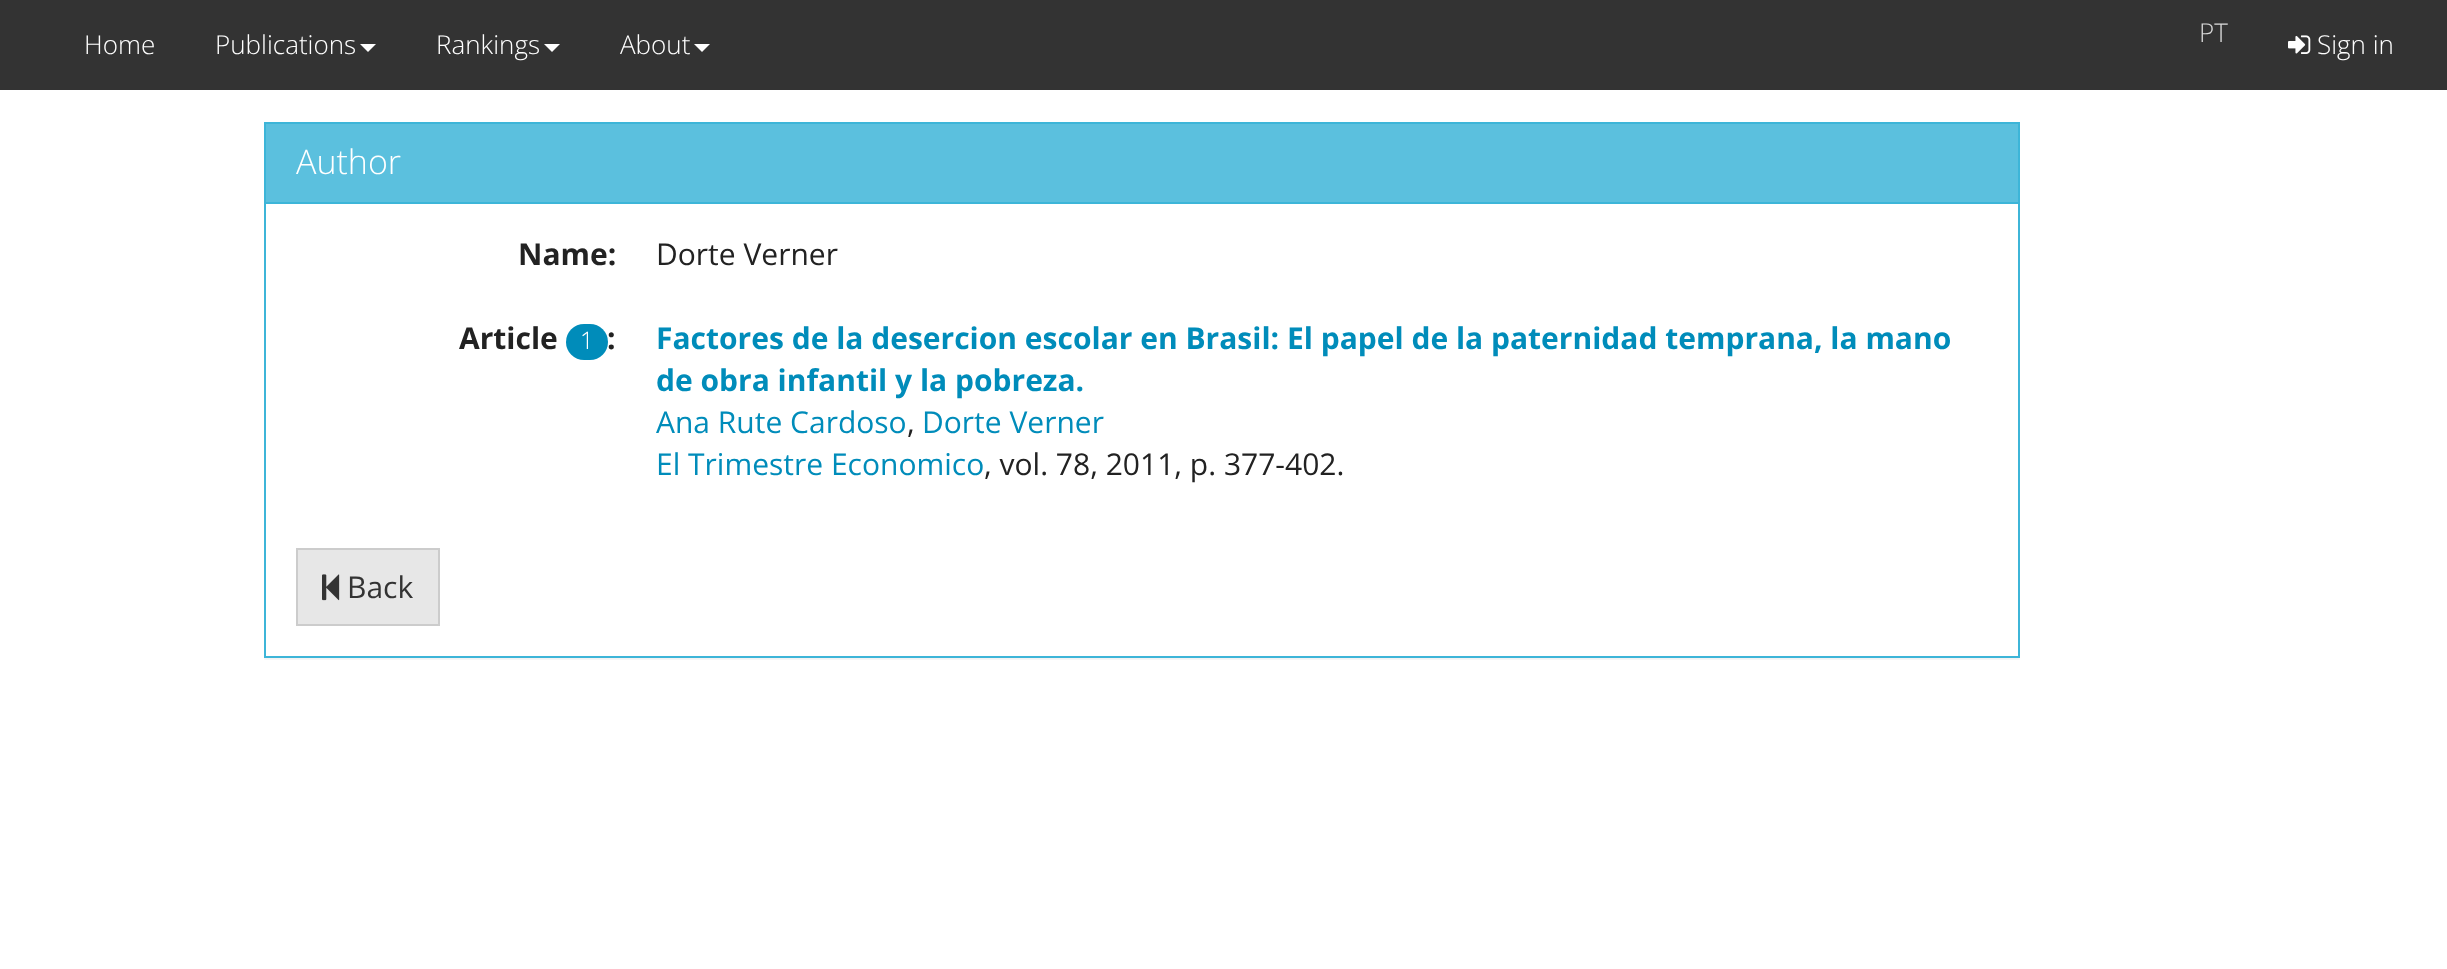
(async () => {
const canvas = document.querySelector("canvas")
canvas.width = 2447
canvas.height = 969
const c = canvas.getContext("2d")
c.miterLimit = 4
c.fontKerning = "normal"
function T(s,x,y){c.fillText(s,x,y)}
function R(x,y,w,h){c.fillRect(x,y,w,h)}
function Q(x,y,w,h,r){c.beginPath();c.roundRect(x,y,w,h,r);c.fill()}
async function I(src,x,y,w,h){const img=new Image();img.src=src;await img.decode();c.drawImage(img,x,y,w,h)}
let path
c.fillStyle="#fff"
R(0,0,2447,969)
c.fillStyle="#333"
R(0,0,2447,90)
c.font="300 26px Open Sans"
c.fillStyle="#fff"
T("Home",84,54)
T("Publications",215,54)
path = new Path2D("M360 44h16l-8 8z")
c.fill(path)
T("Rankings",436,54)
path = new Path2D("M544 44h16l-8 8z")
c.fill(path)
T("About",620,54)
path = new Path2D("M694 44h16l-8 8z")
c.fill(path)
c.fillStyle="#d8d8d8"
T("PT",2199,42)
await I("1.png",2288,35,23,19)
c.fillStyle="#fff"
T("Sign in",2317,54)
c.save()
c.beginPath()
c.rect(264,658,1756,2)
c.clip()
c.fillStyle="#0000000d"
c.filter="blur(1px)"
c.beginPath()
c.rect(264,124,1756,536)
c.fill()
c.filter="none"
c.restore()
c.strokeStyle="#3db5d8"
c.lineWidth=2
c.strokeRect(265,123,1754,534)
c.fillStyle="#5bc0de"
R(266,124,1752,78)
c.fillStyle="#3db5d8"
R(266,202,1752,2)
c.font="300 34px Open Sans"
c.fillStyle="#fff"
T("Author",296,174)
c.font="bold 30px Open Sans"
c.fillStyle="#222"
T("Name:",518,265)
c.font="30px Open Sans"
T("Dorte Verner",656,265)
c.font="bold 30px Open Sans"
T("Article",459,349)
c.fillStyle="#008cba"
Q(566,324,42,36,18)
c.font="300 24px Open Sans"
c.fillStyle="#fff"
T("1",580,349)
c.font="bold 30px Open Sans"
c.fillStyle="#222"
T(":",607,349)
c.fillStyle="#008cba"
T("Factores de la desercion escolar en Brasil: El papel de la paternidad temprana, la mano",656,349)
T("de obra infantil y la pobreza.",656,391)
c.font="30px Open Sans"
T("Ana Rute Cardoso",656,433)
c.fillStyle="#222"
T(",",907,433)
c.fillStyle="#008cba"
T("Dorte Verner",922,433)
T("El Trimestre Economico",656,475)
c.fillStyle="#222"
T(", vol. 78, 2011, p. 377-402.",984,475)
c.fillStyle="#e7e7e7"
c.beginPath()
c.rect(297,549,142,76)
c.fill()
c.strokeStyle="#ccc"
c.stroke()
await I("2.png",322,574,18,27)
c.fillStyle="#333"
T("Back",347,598)
})()
